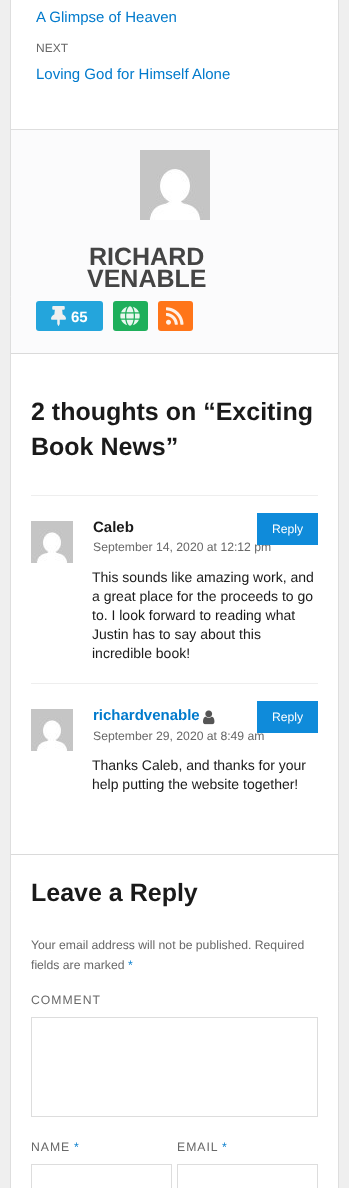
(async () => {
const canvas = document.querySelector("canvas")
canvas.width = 349
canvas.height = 1188
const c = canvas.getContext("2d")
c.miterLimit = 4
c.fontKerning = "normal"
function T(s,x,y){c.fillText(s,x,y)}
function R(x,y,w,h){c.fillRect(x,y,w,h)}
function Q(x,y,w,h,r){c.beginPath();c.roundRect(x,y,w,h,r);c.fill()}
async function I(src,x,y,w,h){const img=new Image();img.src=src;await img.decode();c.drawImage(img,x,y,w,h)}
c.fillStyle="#efefef"
R(0,0,349,1188)
c.fillStyle="#fff"
c.beginPath()
c.rect(10.5,-.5,328,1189)
c.fill()
c.strokeStyle="#dedede"
c.stroke()
c.font="15px Liberation Sans"
c.fillStyle="#007acc"
T("A Glimpse of Heaven",36,22)
c.font="12px Liberation Sans"
c.fillStyle="#686868"
T("NEXT",36,52)
c.font="15px Liberation Sans"
c.fillStyle="#007acc"
T("Loving God for Himself Alone",36,79)
c.fillStyle="#fbfbfc"
R(11,130,327,223)
c.fillStyle="#dedede"
R(11,129,327,1)
await I("1.png",140,150,70,70)
c.font="bold 25px Liberation Sans"
c.fillStyle="#444"
T("RICHARD",89,265)
T("VENABLE",87,287)
c.fillStyle="#24a5dc"
Q(36,301,67,30,3)
await I("2.png",51,306,15,20)
c.font="bold 15px Liberation Sans"
c.fillStyle="#fff"
T("65",71,322)
c.fillStyle="#1eaf5b"
Q(113,301,35,30,3)
await I("3.png",120,306,20,20)
c.fillStyle="#ff7519"
Q(158,301,35,30,3)
await I("4.png",166,307,18,18)
c.fillStyle="#dadada"
R(11,353,327,1)
c.font="bold 25px Liberation Sans"
c.fillStyle="#1a1a1a"
T("2 thoughts on “Exciting",31,420)
T("Book News”",31,455)
c.fillStyle="#eee"
R(31,495,287,1)
await I("5.png",31,521,42,42)
c.font="bold 15px Liberation Sans"
c.fillStyle="#1a1a1a"
T("Caleb",93,532)
c.font="12.2px Liberation Sans"
c.fillStyle="#686868"
T("September 14, 2020 at 12:12 pm",93,551)
c.fillStyle="#0f8bda"
R(257,513,61,32)
c.fillStyle="#fff"
T("Reply",272,533)
c.font="14px Liberation Sans"
c.fillStyle="#1a1a1a"
T("This sounds like amazing work, and",92,582)
T("a great place for the proceeds to go",92,601)
T("to. I look forward to reading what",92,620)
T("Justin has to say about this",92,639)
T("incredible book!",92,658)
c.fillStyle="#eee"
R(31,683,287,1)
await I("5.png",31,709,42,42)
c.font="bold 15px Liberation Sans"
c.fillStyle="#007acc"
T("richardvenable",93,720)
await I("6.png",203,710,12,15)
c.font="12.2px Liberation Sans"
c.fillStyle="#686868"
T("September 29, 2020 at 8:49 am",93,740)
c.fillStyle="#0f8bda"
R(257,701,61,32)
c.fillStyle="#fff"
T("Reply",272,721)
c.font="14px Liberation Sans"
c.fillStyle="#1a1a1a"
T("Thanks Caleb, and thanks for your",92,770)
T("help putting the website together!",92,789)
c.fillStyle="#dadada"
R(11,854,327,1)
c.font="bold 25px Liberation Sans"
c.fillStyle="#1a1a1a"
T("Leave a Reply",31,901)
c.font="12.2px Liberation Sans"
c.fillStyle="#686868"
T("Your email address will not be published. Required",31,949)
T("fields are marked",31,969)
c.fillStyle="#007acc"
T("*",128,969)
c.letterSpacing="1px"
c.fillStyle="#686868"
T("COMMENT",31,1004)
c.strokeStyle="#ddd"
c.strokeRect(31.5,1017.5,286,99)
T("NAME",31,1151)
c.fillStyle="#007acc"
T("*",74,1151)
c.strokeRect(31.5,1164.5,140,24)
c.fillStyle="#686868"
T("EMAIL",177,1151)
c.fillStyle="#007acc"
T("*",222,1151)
c.strokeRect(177.5,1164.5,140,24)
})()
